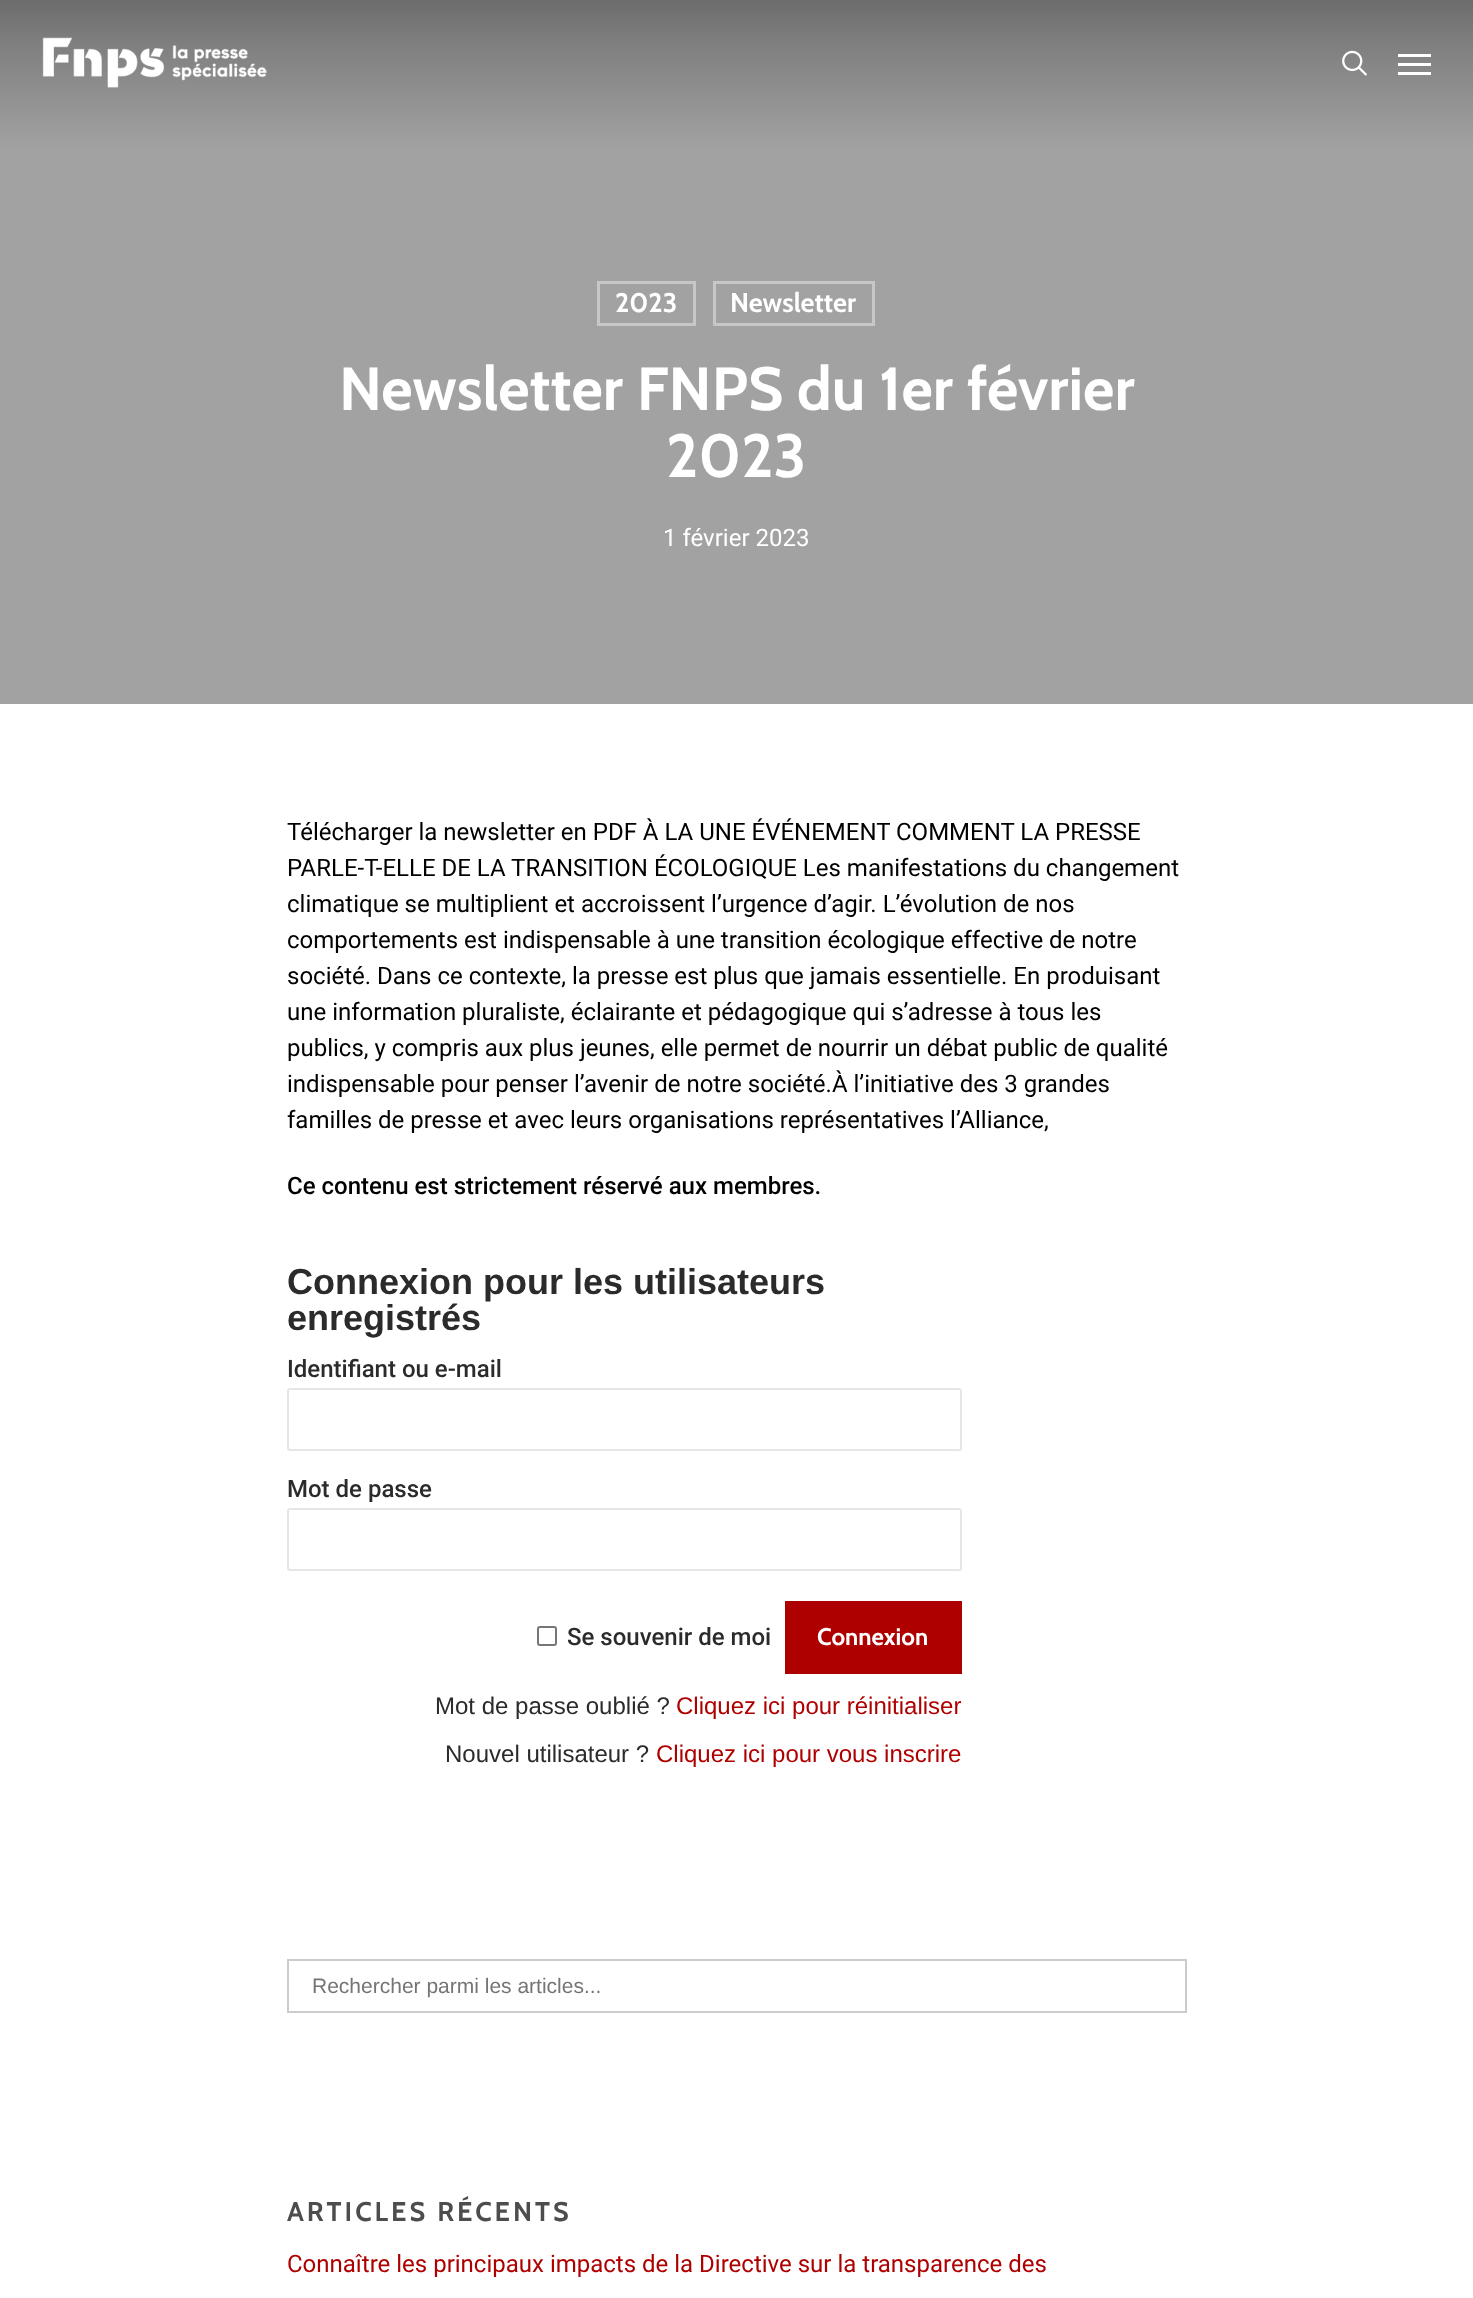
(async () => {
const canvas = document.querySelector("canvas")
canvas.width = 1473
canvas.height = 2298
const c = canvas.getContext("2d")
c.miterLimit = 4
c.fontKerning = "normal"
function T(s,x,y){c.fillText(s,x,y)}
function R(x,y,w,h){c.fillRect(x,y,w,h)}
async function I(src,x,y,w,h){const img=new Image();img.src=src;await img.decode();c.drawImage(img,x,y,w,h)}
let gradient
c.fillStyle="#fff"
R(0,0,1473,2298)
gradient = c.createLinearGradient(737,152,737,0)
gradient.addColorStop(0,"#a2a2a2")
gradient.addColorStop(.01,"#a2a2a2")
gradient.addColorStop(.16,"#9b9b9b")
gradient.addColorStop(.75,"#7d7d7d")
gradient.addColorStop(1,"#6c6c6c")
c.fillStyle = gradient
R(0,0,1473,152)
await I("1.png",42,37,225,51)
await I("2.png",1342,50,25,26)
c.fillStyle="#fff"
R(1398,54,33,3)
R(1398,72,33,3)
R(1398,63,33,3)
c.fillStyle="#a2a2a2"
R(0,152,1473,552)
c.strokeStyle="#c7c7c7"
c.lineWidth=3
c.strokeRect(598.5,282.5,96,42)
c.font="bold 27px Cabin"
c.fillStyle="#fff"
T("2023",615,312)
c.strokeRect(714.5,282.5,159,42)
T("Newsletter",730,312)
c.font="bold 60.9px Cabin"
T("Newsletter FNPS du 1er février",339,410)
T("2023",666,477)
c.font="24px Roboto"
T("1 février 2023",663,546)
c.fillStyle="#000"
T("Télécharger la newsletter en PDF À LA UNE ÉVÉNEMENT COMMENT LA PRESSE",287,840)
T("PARLE-T-ELLE DE LA TRANSITION ÉCOLOGIQUE Les manifestations du changement",287,876)
T("climatique se multiplient et accroissent l’urgence d’agir. L’évolution de nos",287,912)
T("comportements est indispensable à une transition écologique effective de notre",287,948)
T("société. Dans ce contexte, la presse est plus que jamais essentielle. En produisant",287,984)
T("une information pluraliste, éclairante et pédagogique qui s’adresse à tous les",287,1020)
T("publics, y compris aux plus jeunes, elle permet de nourrir un débat public de qualité",287,1056)
T("indispensable pour penser l’avenir de notre société.À l’initiative des 3 grandes",287,1092)
T("familles de presse et avec leurs organisations représentatives l’Alliance,",287,1128)
c.font="500 24px Roboto"
T("Ce contenu est strictement réservé aux membres.",287,1194)
c.font="bold 36px Liberation Sans"
c.fillStyle="#2b2b2b"
T("Connexion pour les utilisateurs",287,1294)
T("enregistrés",287,1330)
c.font="500 24px Roboto"
T("Identifiant ou e-mail",287,1377)
c.beginPath()
c.roundRect(288,1389,673,61,2)
c.strokeStyle="#e6e6e6"
c.lineWidth=2
c.stroke()
T("Mot de passe",287,1497)
c.beginPath()
c.roundRect(288,1509,673,61,2)
c.stroke()
c.beginPath()
c.roundRect(538,1627,18,18,2)
c.strokeStyle="#767676"
c.stroke()
T("Se souvenir de moi",567,1645)
c.fillStyle="#af0000"
R(785,1601,177,73)
c.font="bold 24px Cabin"
c.fillStyle="#fff"
T("Connexion",817,1645)
c.font="24px Liberation Sans"
c.fillStyle="#2b2b2b"
T("Mot de passe oublié ?",435,1714)
c.fillStyle="#af0000"
T("Cliquez ici pour réinitialiser",676,1714)
c.fillStyle="#2b2b2b"
T("Nouvel utilisateur ?",445,1762)
c.fillStyle="#af0000"
T("Cliquez ici pour vous inscrire",656,1762)
c.strokeStyle="#ccc"
c.strokeRect(288,1960,898,52)
c.font="21px Liberation Sans"
c.fillStyle="#757575"
T("Rechercher parmi les articles...",312,1993)
c.letterSpacing="3px"
c.font="bold 27px Cabin"
c.fillStyle="#4d4d4d"
T("ARTICLES RÉCENTS",287,2221)
c.letterSpacing="0px"
c.font="24px Roboto"
c.fillStyle="#af0000"
T("Connaître les principaux impacts de la Directive sur la transparence des",287,2272)
})()
